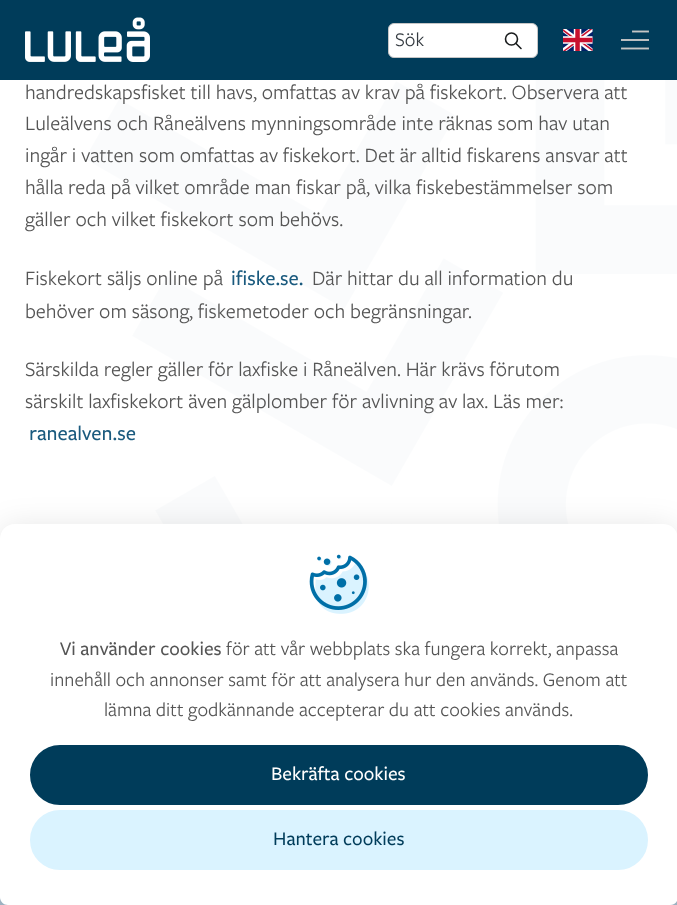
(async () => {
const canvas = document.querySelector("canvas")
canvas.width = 677
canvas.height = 905
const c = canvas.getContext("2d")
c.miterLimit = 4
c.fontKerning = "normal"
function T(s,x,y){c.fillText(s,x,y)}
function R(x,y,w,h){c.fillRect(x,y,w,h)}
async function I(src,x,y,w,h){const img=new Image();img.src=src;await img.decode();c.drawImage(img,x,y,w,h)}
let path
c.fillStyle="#fff"
R(0,0,677,905)
c.fillStyle="#003c5a"
R(0,0,677,80)
await I("1.png",25,17,125,45)
c.fillStyle="#fff"
c.beginPath()
c.roundRect(388.5,23.5,149,34,5.5)
c.fill()
c.strokeStyle="#c6c6c6"
c.stroke()
c.font="20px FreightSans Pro"
c.fillStyle="#343a40"
T("Sök",395,46)
path = new Path2D("M521 48.5l-5-5")
c.strokeStyle="#1a1d1e"
c.lineWidth=1.6
c.lineCap="round"
c.lineJoin="round"
c.stroke(path)
c.beginPath()
c.arc(511.5,39,6,0,7)
c.stroke()
await I("2.png",563,29,30,22)
path = new Path2D("M633 31.5h15")
c.strokeStyle="#c6c6c6"
c.lineWidth=1.9
c.lineCap="square"
c.lineJoin="miter"
c.stroke(path)
c.fillStyle="#bcbfc1"
R(621,39,28,2)
path = new Path2D("M622 48.5h26")
c.stroke(path)
await I("3.png",85,80,592,444)
c.font="21.25px FreightSans Pro"
c.fillStyle="#555"
T("handredskapsfisket till havs, omfattas av krav på fiskekort. Observera att",25,99)
T("Luleälvens och Råneälvens mynningsområde inte räknas som hav utan",25,130)
T("ingår i vatten som omfattas av fiskekort. Det är alltid fiskarens ansvar att",25,162)
T("hålla reda på vilket område man fiskar på, vilka fiskebestämmelser som",25,194)
T("gäller och vilket fiskekort som behövs.",25,226)
T("Fiskekort säljs online på",25,285)
c.font="500 21.25px FreightSans Pro"
c.fillStyle="#1a5a7e"
T("ifiske.se.",231,285)
c.font="21.25px FreightSans Pro"
c.fillStyle="#555"
T("Där hittar du all information du",312,285)
T("behöver om säsong, fiskemetoder och begränsningar.",25,318)
T("Särskilda regler gäller för laxfiske i Råneälven. Här krävs förutom",25,376)
T("särskilt laxfiskekort även gälplomber för avlivning av lax. Läs mer:",25,408)
c.font="500 21.25px FreightSans Pro"
c.fillStyle="#1a5a7e"
T("ranealven.se",29,440)
c.fillStyle="#a3b8c8"
R(0,897,677,8)
c.fillStyle="#0000001a"
c.filter="blur(15px)"
c.beginPath()
c.roundRect(0,526,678,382,15)
c.fill()
c.filter="none"
c.fillStyle="#fff"
path = new Path2D("M15 524h648c8.5 0 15 6.5 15 15v358c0 4.5-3.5 8-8 8h-662c-4.5 0-8-3.5-8-8v-358c0-8.5 6.5-15 15-15z")
c.fill(path)
await I("4.png",309,554,60,60)
c.font="500 20px FreightSans Pro"
c.fillStyle="#555"
T("Vi använder cookies",60,655)
c.font="20px FreightSans Pro"
T("för att vår webbplats ska fungera korrekt, anpassa",226,655)
T("innehåll och annonser samt för att analysera hur den används. Genom att",50,686)
T("lämna ditt godkännande accepterar du att cookies används.",104,716)
c.fillStyle="#003c5a"
c.beginPath()
c.roundRect(31.5,746.5,615,57,28.5)
c.fill()
c.strokeStyle="#003c5a"
c.lineWidth=3
c.stroke()
c.font="500 20px FreightSans Pro"
c.fillStyle="#fff"
T("Bekräfta cookies",271,780)
c.fillStyle="#daf3ff"
c.beginPath()
c.roundRect(31.5,811.5,615,57,28.5)
c.fill()
c.strokeStyle="#daf3ff"
c.stroke()
c.fillStyle="#003c5a"
T("Hantera cookies",273,845)
})()
